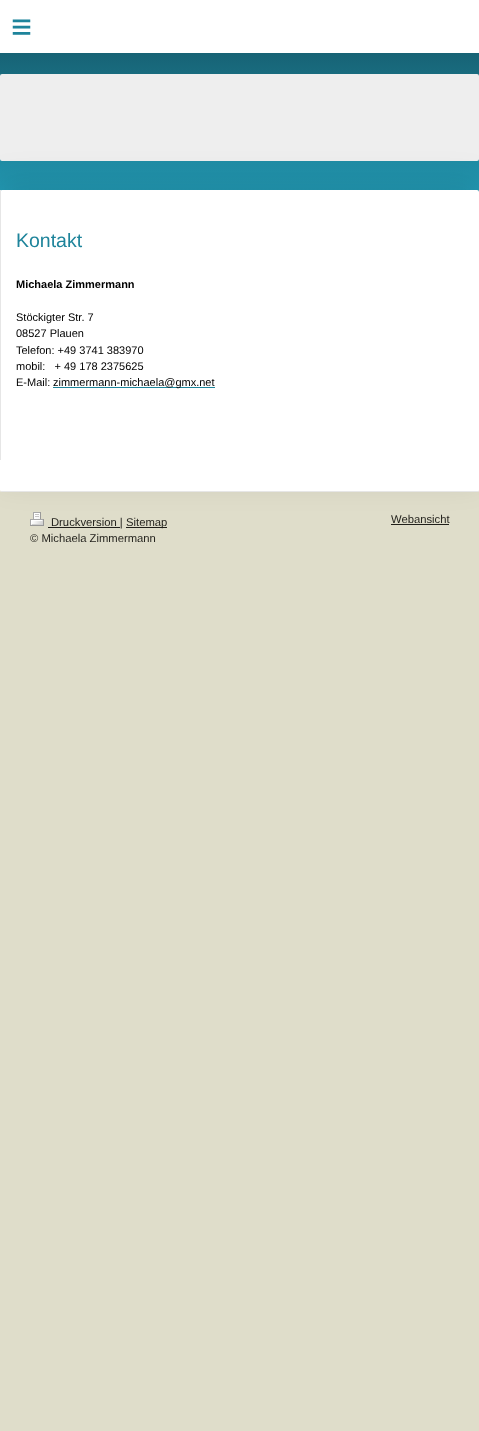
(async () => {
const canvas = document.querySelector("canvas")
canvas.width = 479
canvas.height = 1431
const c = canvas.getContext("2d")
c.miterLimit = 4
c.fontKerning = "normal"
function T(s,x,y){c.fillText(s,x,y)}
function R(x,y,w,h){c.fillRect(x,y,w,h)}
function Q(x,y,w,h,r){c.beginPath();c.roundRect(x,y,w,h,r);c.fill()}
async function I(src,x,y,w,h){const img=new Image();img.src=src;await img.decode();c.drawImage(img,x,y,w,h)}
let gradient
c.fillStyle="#dfddca"
R(0,0,479,1431)
c.fillStyle="#fff"
R(0,0,479,53)
c.letterSpacing="10px"
c.font="36px Liberation Sans"
c.fillStyle="#1e849b"
T("≡",11,39)
gradient = c.createLinearGradient(0,224,0,53)
gradient.addColorStop(0,"#25a5c1")
gradient.addColorStop(1,"#176375")
c.fillStyle = gradient
R(0,53,479,139)
c.fillStyle="#eee"
Q(0,74,479,87,2)
c.fillStyle="#0000001a"
c.filter="blur(15px)"
c.beginPath()
c.roundRect(0,180,479,302,2)
c.fill()
c.filter="none"
c.fillStyle="#fff"
Q(0,190,479,302,2)
c.fillStyle="#e6e6e6"
R(1,491,477,1)
R(0,190,1,270)
c.letterSpacing="0px"
c.font="19.5px Liberation Sans"
c.fillStyle="#1e849b"
T("Kontakt",16,247)
c.font="bold 11px Liberation Sans"
c.fillStyle="#000"
T("Michaela Zimmermann",16,288)
c.font="11px Liberation Sans"
T("Stöckigter Str. 7",16,321)
T("08527 Plauen",16,337)
T("Telefon: +49 3741 383970",16,354)
T("mobil:   + 49 178 2375625",16,370)
T("E-Mail:",16,386)
c.fillStyle="#1e849b"
R(53,387,162,1)
c.fillStyle="#000"
T("zimmermann-michaela@gmx.net",53,386)
await I("1.png",30,512,14,14)
c.fillStyle="#201f1a"
R(48,527,72,1)
c.font="11.25px Liberation Sans"
T("Druckversion |",51,526)
R(126,527,41,1)
T("Sitemap",126,526)
T("© Michaela Zimmermann",30,542)
T("Webansicht",391,523)
R(391,524,58,1)
})()
